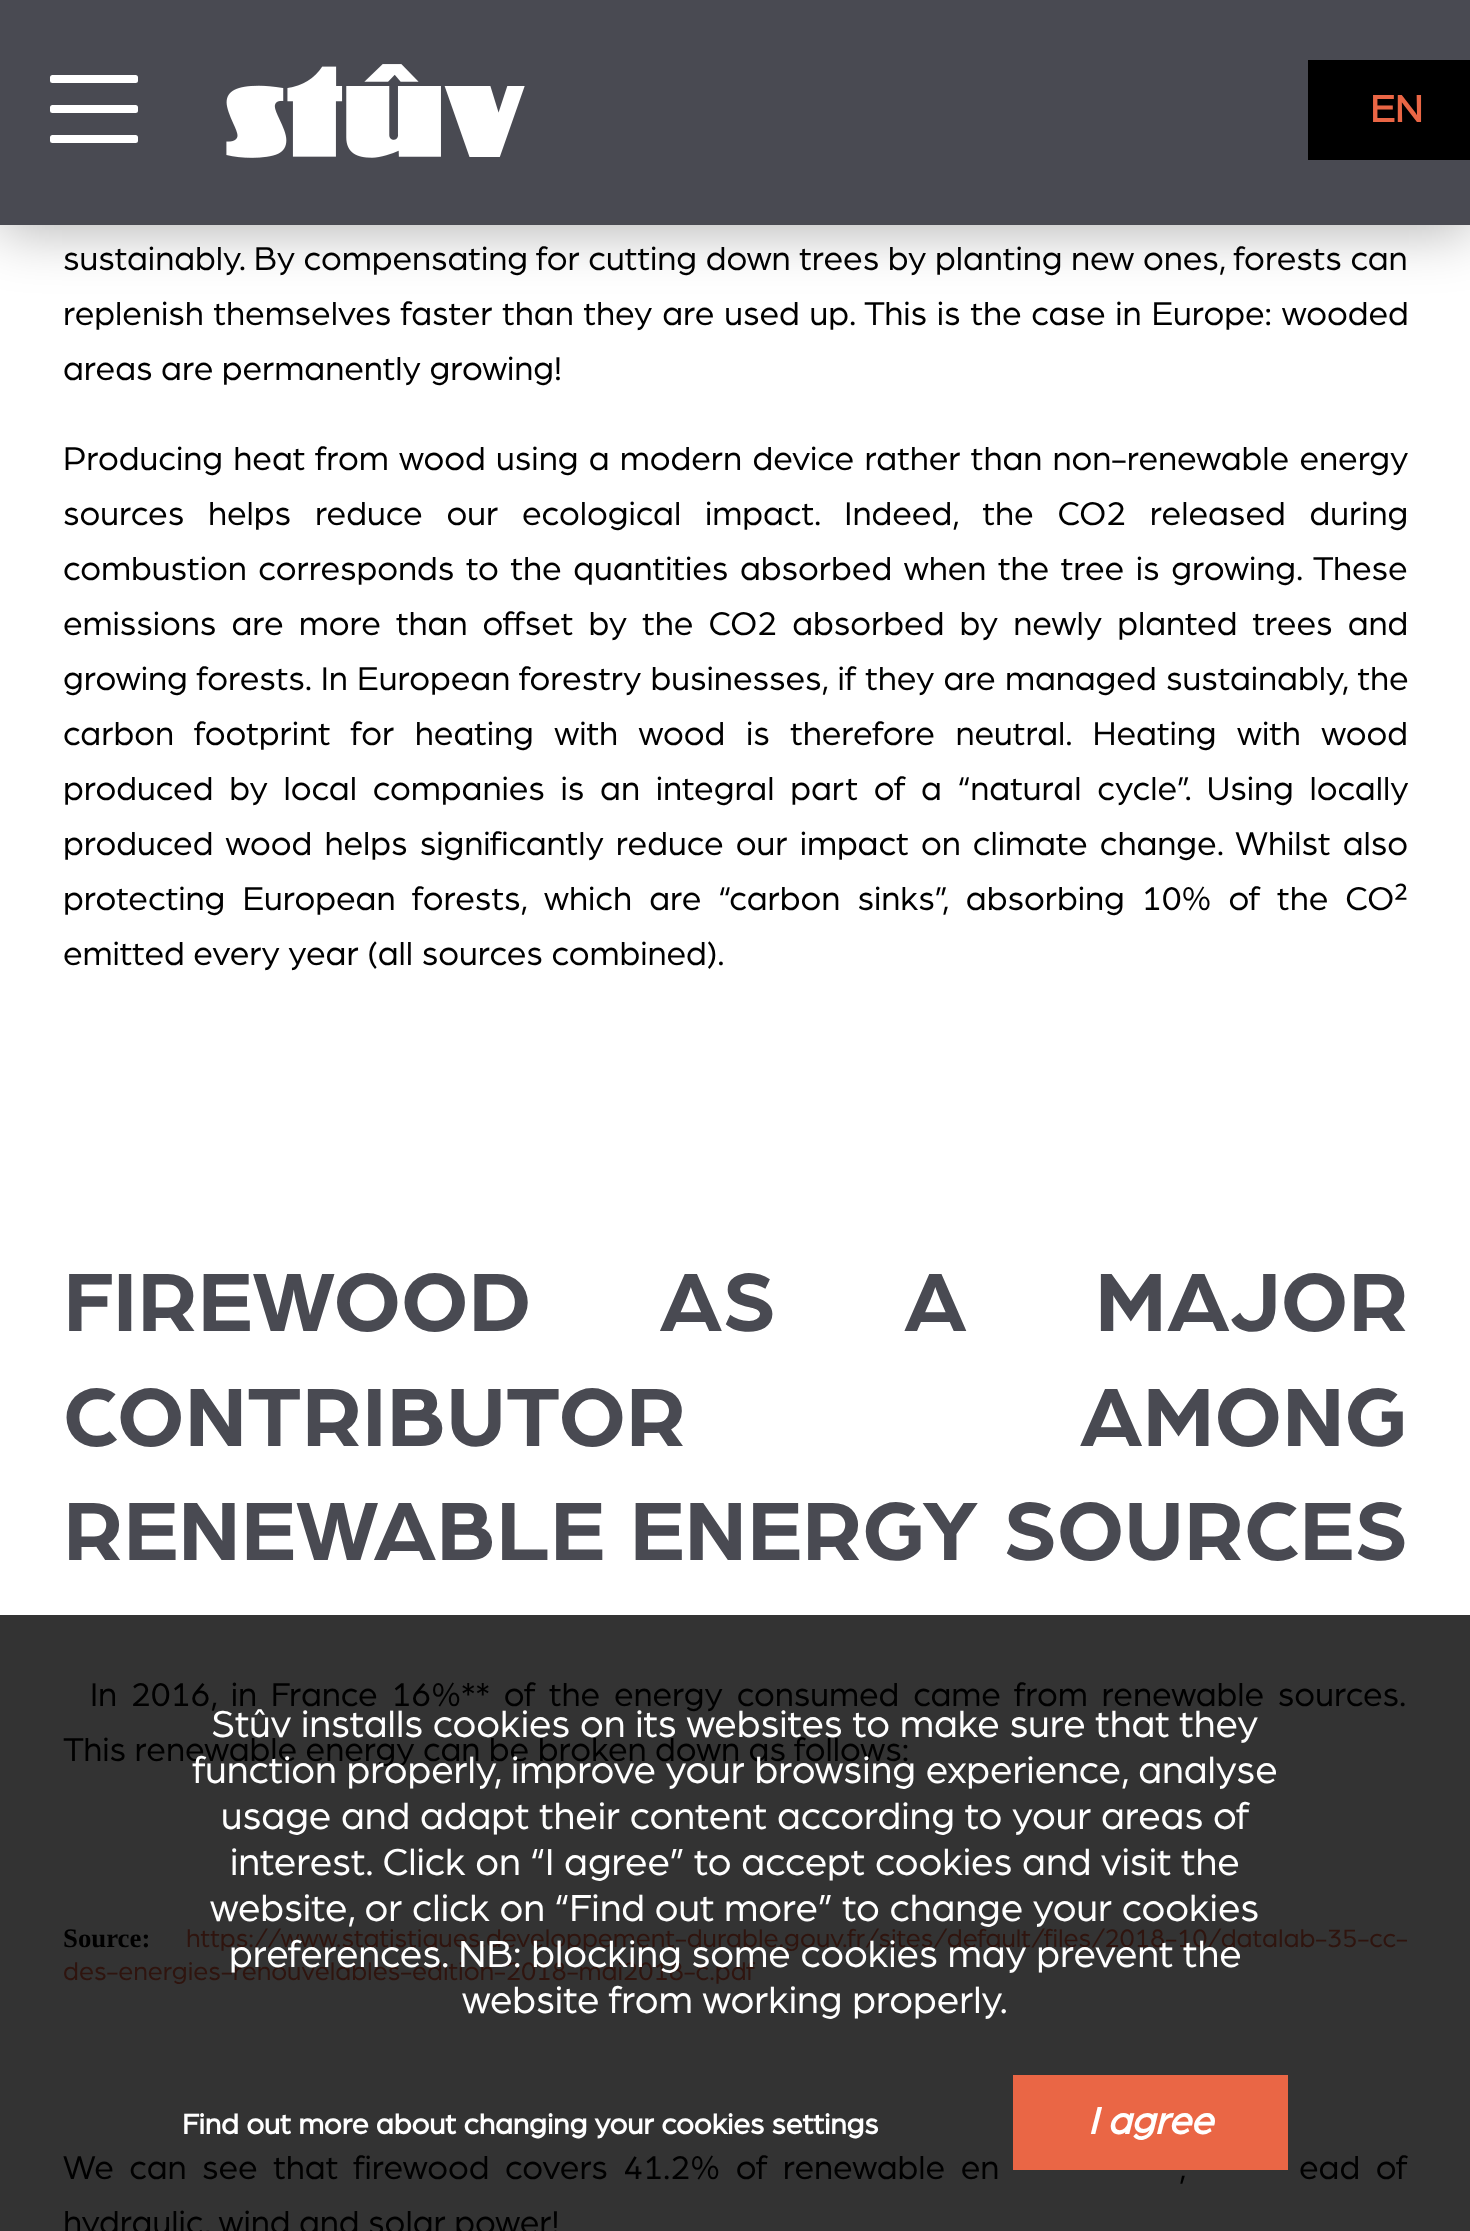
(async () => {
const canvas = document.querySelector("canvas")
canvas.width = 1470
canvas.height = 2231
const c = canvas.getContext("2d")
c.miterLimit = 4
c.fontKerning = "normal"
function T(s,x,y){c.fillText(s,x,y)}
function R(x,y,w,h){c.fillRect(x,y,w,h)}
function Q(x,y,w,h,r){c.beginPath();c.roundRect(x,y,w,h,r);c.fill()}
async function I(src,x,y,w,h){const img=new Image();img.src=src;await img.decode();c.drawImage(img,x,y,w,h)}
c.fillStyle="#fff"
R(0,0,1470,2231)
c.fillStyle="#0000004d"
c.filter="blur(29px)"
c.beginPath()
c.rect(-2,0,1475,230)
c.fill()
c.filter="none"
c.fillStyle="#494a52"
R(0,0,1470,225)
c.fillStyle="#fff"
Q(50,75,88,8,2.5)
Q(50,105,88,8,2.5)
Q(50,135,88,8,2.5)
await I("1.png",226,64,299,94)
c.fillStyle="#000"
R(1308,60,162,100)
c.font="bold 40px 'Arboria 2'"
c.fillStyle="#ea6645"
T("EN",1370,122)
c.fillStyle="#333"
R(0,1615,1470,616)
c.wordSpacing="0.1px"
c.font="35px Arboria"
c.fillStyle="#000"
T("sustainably. By compensating for cutting down trees by planting new ones, forests can",63,270)
c.wordSpacing="1.25px"
T("replenish themselves faster than they are used up. This is the case in Europe: wooded",63,325)
c.wordSpacing="0px"
T("areas are permanently growing!",63,380)
c.wordSpacing="1.75px"
T("Producing heat from wood using a modern device rather than non-renewable energy",63,470)
c.wordSpacing="15.25px"
T("sources helps reduce our ecological impact. Indeed, the CO2 released during",63,525)
c.wordSpacing="3.1px"
T("combustion corresponds to the quantities absorbed when the tree is growing. These",63,580)
c.wordSpacing="6.6px"
T("emissions are more than offset by the CO2 absorbed by newly planted trees and",63,635)
c.wordSpacing="0.75px"
T("growing forests. In European forestry businesses, if they are managed sustainably, the",63,690)
c.wordSpacing="12px"
T("carbon footprint for heating with wood is therefore neutral. Heating with wood",63,745)
c.wordSpacing="7.25px"
T("produced by local companies is an integral part of a “natural cycle”. Using locally",63,800)
c.wordSpacing="3.6px"
T("produced wood helps significantly reduce our impact on climate change. Whilst also",63,855)
c.wordSpacing="8.6px"
T("protecting European forests, which are “carbon sinks”, absorbing 10% of the CO²",63,910)
c.wordSpacing="0px"
T("emitted every year (all sources combined).",63,965)
c.wordSpacing="103.5px"
c.font="bold 88px Arboria"
c.fillStyle="#494a52"
T("FIREWOOD AS A MAJOR",63,1331)
c.wordSpacing="369px"
T("CONTRIBUTOR AMONG",63,1446)
c.wordSpacing="0px"
T("RENEWABLE ENERGY SOURCES",63,1560)
c.wordSpacing="5.25px"
c.font="35px Arboria"
c.fillStyle="#000"
T("In 2016, in France 16%** of the energy consumed came from renewable sources.",90,1706)
c.wordSpacing="0px"
T("This renewable energy can be broken down as follows:",63,1761)
c.font="bold 26.8px Liberation Serif"
T("Source:",63,1947)
c.font="26.8px Arboria"
c.fillStyle="#2f140e"
T("https://www.statistiques.developpement-durable.gouv.fr/sites/default/files/2018-10/datalab-35-cc-",186,1947)
T("des-energies-renouvelables-edition-2018-mai2018-c.pdf",63,1980)
c.wordSpacing="7px"
c.font="35px Arboria"
c.fillStyle="#000"
T("We can see that firewood covers 41.2% of renewable en",63,2179)
T(",",1179,2179)
T("ead of",1299,2179)
c.wordSpacing="0px"
T("hydraulic, wind and solar power!",63,2234)
c.font="40px Arboria"
c.fillStyle="#fff"
T("Stûv installs cookies on its websites to make sure that they",211,1737)
T("function properly, improve your browsing experience, analyse",193,1783)
T("usage and adapt their content according to your areas of",221,1829)
T("interest. Click on “I agree” to accept cookies and visit the",230,1875)
T("website, or click on “Find out more” to change your cookies",210,1921)
T("preferences. NB: blocking some cookies may prevent the",229,1967)
T("website from working properly.",462,2013)
c.font="bold 30px 'Arboria 2'"
T("Find out more about changing your cookies settings",182,2134)
c.fillStyle="#ea6645"
R(1013,2075,275,95)
c.font="italic bold 40px Arboria"
c.fillStyle="#fff"
T("I agree",1088,2134)
})()
